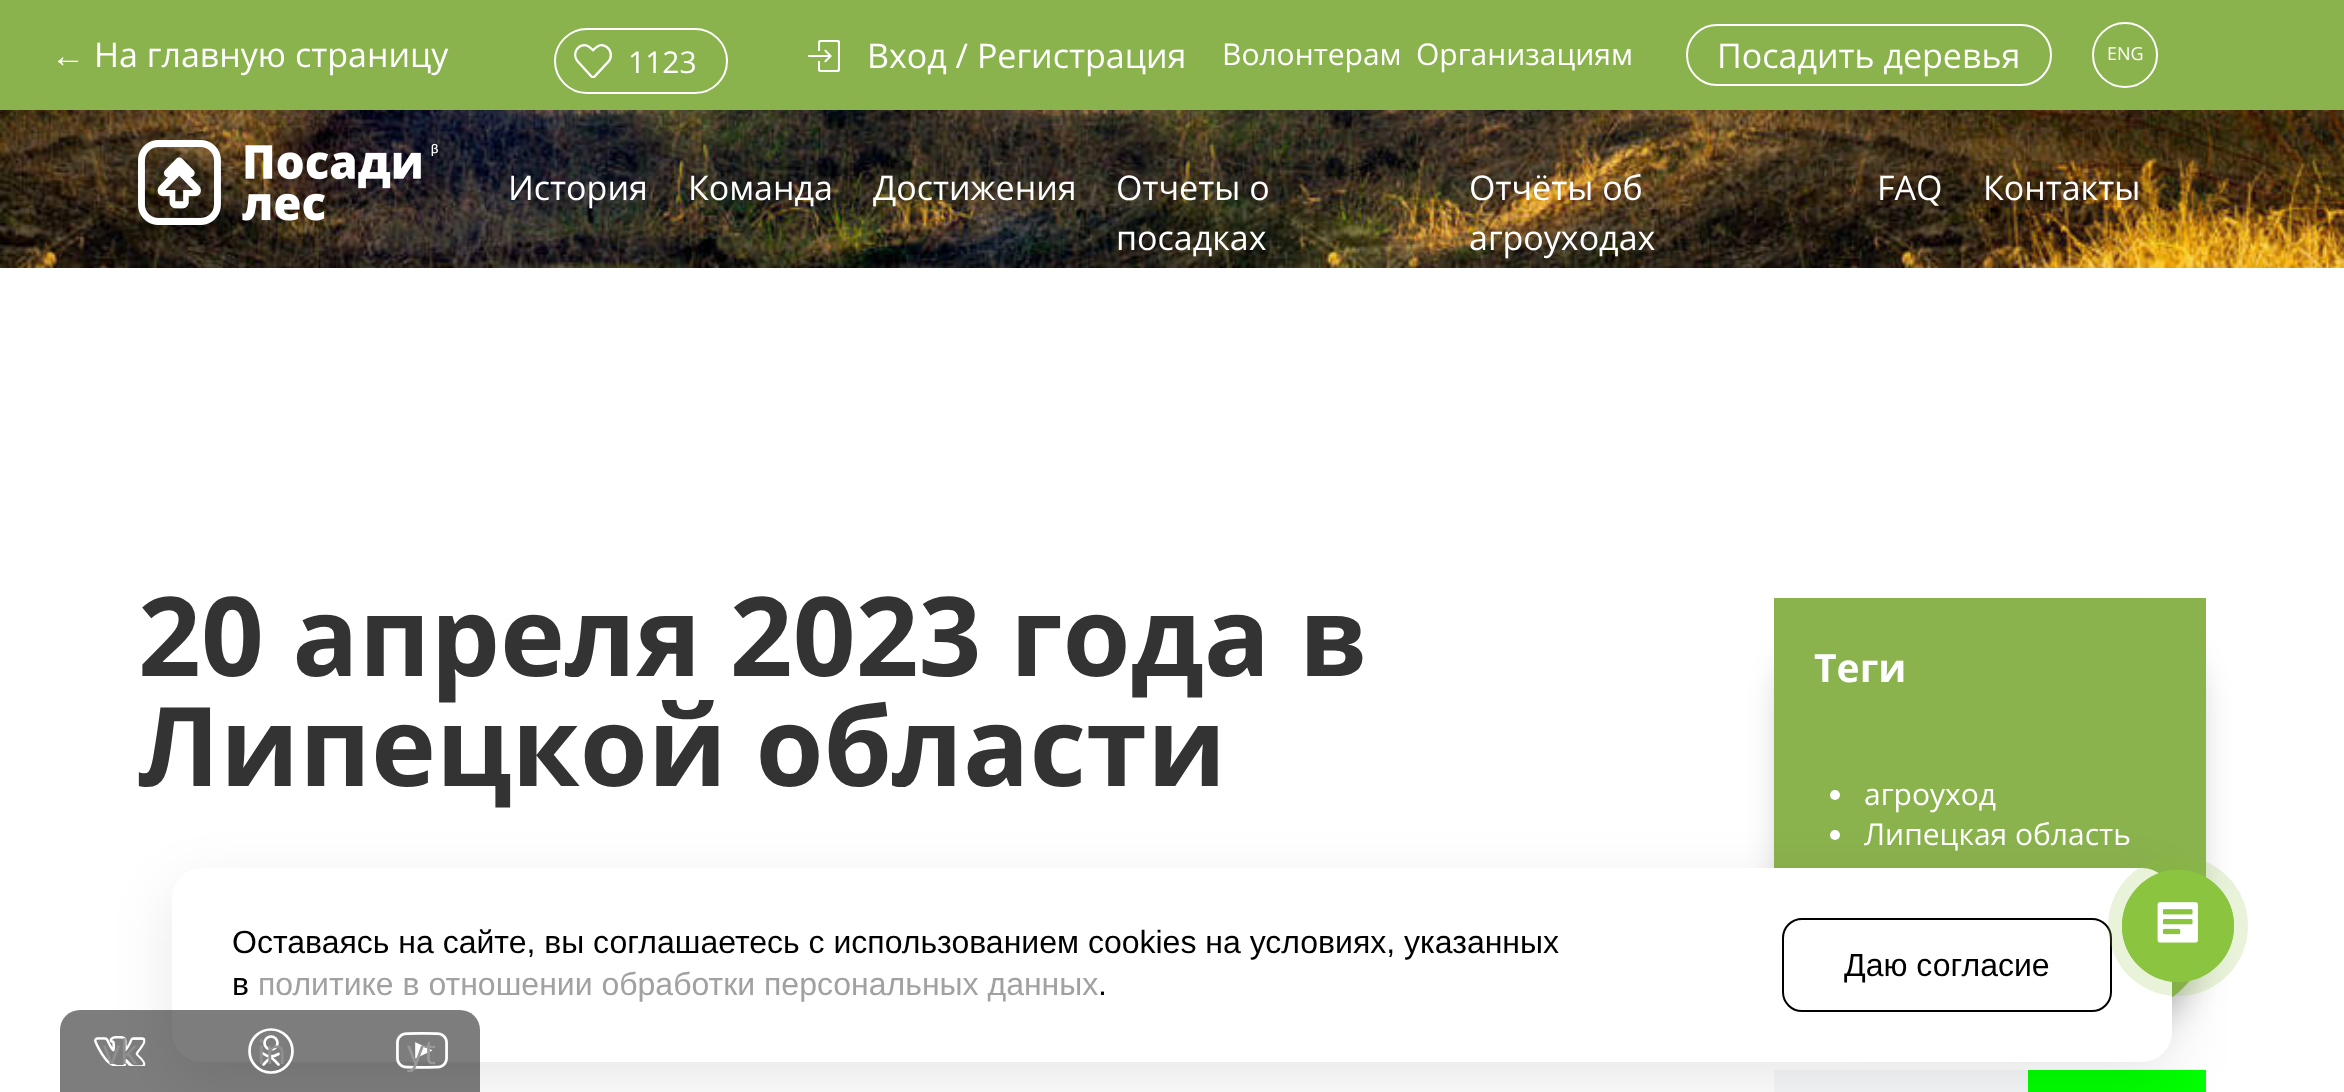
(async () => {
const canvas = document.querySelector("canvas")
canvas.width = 2344
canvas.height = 1092
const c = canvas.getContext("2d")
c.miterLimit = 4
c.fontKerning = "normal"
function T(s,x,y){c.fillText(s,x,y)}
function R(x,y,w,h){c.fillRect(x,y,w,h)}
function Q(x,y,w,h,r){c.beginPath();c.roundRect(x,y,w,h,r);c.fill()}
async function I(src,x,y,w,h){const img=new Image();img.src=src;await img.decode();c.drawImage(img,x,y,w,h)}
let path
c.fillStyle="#fff"
R(0,0,2344,1092)
c.fillStyle="#8ab24d"
R(0,0,2344,110)
c.font="34px Liberation Sans"
c.fillStyle="#fff"
T("←",51,67)
c.font="34px Open Sans"
T("На главную страницу",94,67)
await I("1.png",574,44,38,34)
c.beginPath()
c.roundRect(555,29,172,64,32)
c.strokeStyle="#fff"
c.lineWidth=2
c.stroke()
c.font="30px Open Sans"
T("1123",628,73)
await I("2.png",808,40,32,32)
c.font="34px Open Sans"
T("Вход / Регистрация",867,68)
c.font="30px Open Sans"
T("Волонтерам",1222,65)
T("Организациям",1416,65)
c.beginPath()
c.roundRect(1687,25,364,60,30)
c.stroke()
c.font="34px Open Sans"
T("Посадить деревья",1717,68)
c.beginPath()
c.arc(2125,55,32,0,7)
c.stroke()
c.font="18px Open Sans"
T("ENG",2107,60)
await I("3.png",0,110,2344,158)
await I("4.png",138,140,300,85)
c.font="34px Open Sans"
T("История",508,200)
T("Команда",688,200)
T("Достижения",873,200)
T("Отчеты о",1116,200)
T("посадках",1116,250)
T("Отчёты об",1469,200)
T("агроуходах",1469,250)
T("FAQ",1877,200)
T("Контакты",1983,200)
c.font="bold 110px Open Sans"
c.fillStyle="#333"
T("20 апреля 2023 года в",138,676)
T("Липецкой области",138,786)
c.fillStyle="#0000004d"
c.filter="blur(18px)"
c.beginPath()
c.roundRect(1786,634,408,390,68)
c.fill()
c.filter="none"
c.fillStyle="#8ab24d"
c.beginPath()
c.roundRect(1774,598,432,414,[0,0,80,0])
c.fill()
c.font="bold 39px Open Sans"
c.fillStyle="#fff"
T("Теги",1814,682)
c.beginPath()
c.arc(1835,795,5,0,7)
c.fill()
c.font="30px Open Sans"
T("агроуход",1864,805)
c.beginPath()
c.arc(1835,835,5,0,7)
c.fill()
T("Липецкая область",1864,845)
c.fillStyle="#f6f7f9"
R(1774,1070,254,22)
c.fillStyle="#0f0"
R(2028,1070,178,22)
c.fillStyle="#00000017"
c.filter="blur(30px)"
c.beginPath()
c.roundRect(172,888,2000,194,30)
c.fill()
c.filter="none"
c.fillStyle="#fff"
Q(172,868,2000,194,30)
c.font="32px Liberation Sans"
c.fillStyle="#000"
T("Оставаясь на сайте, вы соглашаетесь с использованием cookies на условиях, указанных",232,953)
T("в",232,995)
c.fillStyle="#a1a1a1"
T("политике в отношении обработки персональных данных",258,995)
c.fillStyle="#000"
T(".",1098,995)
c.beginPath()
c.roundRect(1783,919,328,92,19)
c.strokeStyle="#000"
c.stroke()
T("Даю согласие",1844,976)
c.fillStyle="#8bc54033"
c.beginPath()
c.arc(2178,926,70,0,7)
c.fill()
c.beginPath()
c.arc(2178,926,55,0,7)
c.strokeStyle="#8bc540"
c.stroke()
c.fillStyle="#8bc540"
c.beginPath()
c.arc(2178,926,56,0,7)
c.fill()
await I("5.png",2157,902,41,41)
c.fillStyle="#00000082"
c.beginPath()
c.roundRect(60,1010,420,82,[20,20,0,0])
c.fill()
await I("6.png",94,1036,52,30)
c.font="34px Open Sans"
c.fillStyle="#8f8f8f"
T("vk",103,1064)
c.beginPath()
c.arc(271,1043,6.5,0,7)
c.strokeStyle="#fff"
c.lineWidth=2.7
c.stroke()
path = new Path2D("M278.5 1054c-5 3-11 3-15.5-.5m.5 11c9-9 6-9 15 0")
c.lineCap="round"
c.lineJoin="round"
c.stroke(path)
c.beginPath()
c.arc(271,1051,21.5,0,7)
c.stroke()
T("in",257,1064)
await I("7.png",396,1032,52,37)
c.fillStyle="#989898"
T("yt",407,1064)
})()
